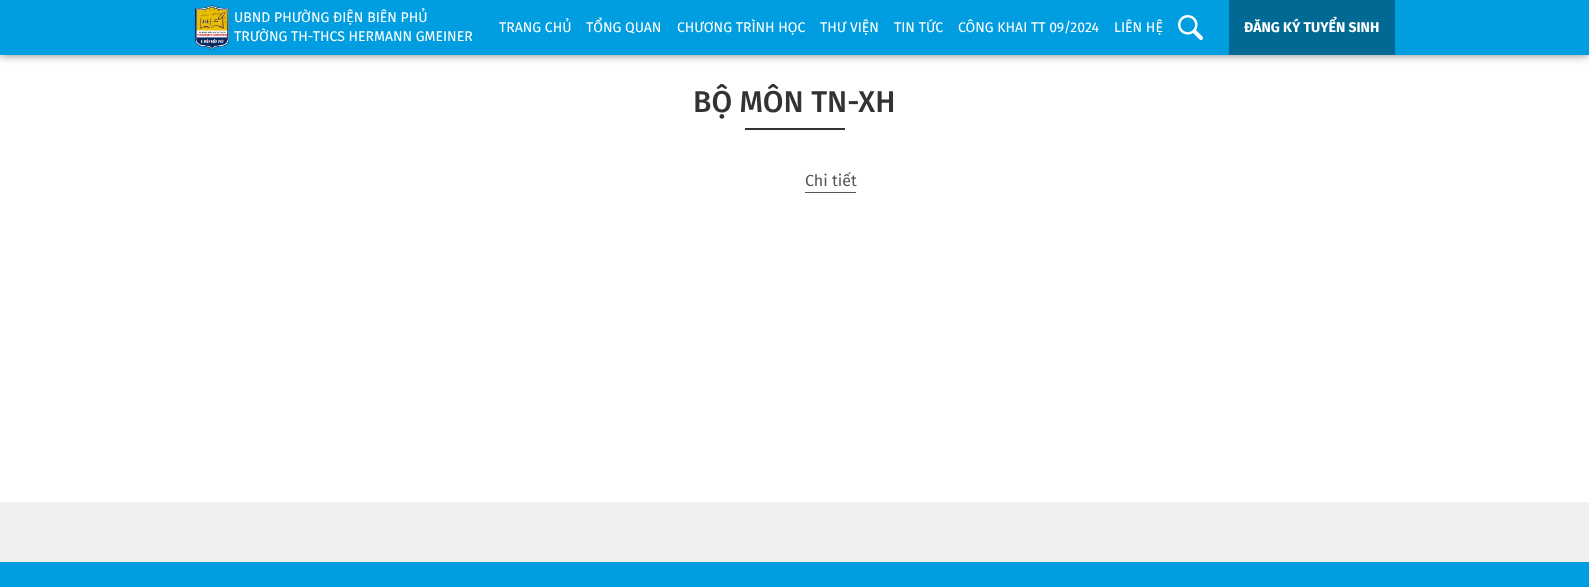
(async () => {
const canvas = document.querySelector("canvas")
canvas.width = 1589
canvas.height = 587
const c = canvas.getContext("2d")
c.miterLimit = 4
c.fontKerning = "normal"
function T(s,x,y){c.fillText(s,x,y)}
function R(x,y,w,h){c.fillRect(x,y,w,h)}
async function I(src,x,y,w,h){const img=new Image();img.src=src;await img.decode();c.drawImage(img,x,y,w,h)}
c.fillStyle="#fff"
R(0,0,1589,587)
c.fillStyle="#00000080"
c.filter="blur(5px)"
c.beginPath()
c.rect(0,0,1589,55)
c.fill()
c.filter="none"
c.fillStyle="#009ee0"
R(0,0,1589,55)
await I("1.png",194,5,35,45)
c.font="14px Fira Sans"
c.fillStyle="#fff"
T("UBND PHƯỜNG ĐIỆN BIÊN PHỦ",234,22)
T("TRƯỜNG TH-THCS HERMANN GMEINER",234,41)
T("TRANG CHỦ",499,32)
T("TỔNG QUAN",586,32)
T("CHƯƠNG TRÌNH HỌC",677,32)
T("THƯ VIỆN",820,32)
T("TIN TỨC",894,32)
T("CÔNG KHAI TT 09/2024",958,32)
T("LIÊN HỆ",1114,32)
await I("2.png",1178,15,25,25)
c.fillStyle="#006a95"
R(1229,0,166,55)
c.font="bold 14px Fira Sans"
c.fillStyle="#fff"
T("ĐĂNG KÝ TUYỂN SINH",1244,32)
c.font="500 30px Fira Sans"
c.fillStyle="#333"
T("BỘ MÔN TN-XH",693,112)
R(745,128,100,2)
c.fillStyle="#555"
R(805,192,51,1)
c.font="16px Fira Sans"
T("Chi tiết",805,186)
c.fillStyle="#f0f0f0"
R(0,502,1589,60)
c.fillStyle="#009ee0"
R(0,562,1589,25)
})()
